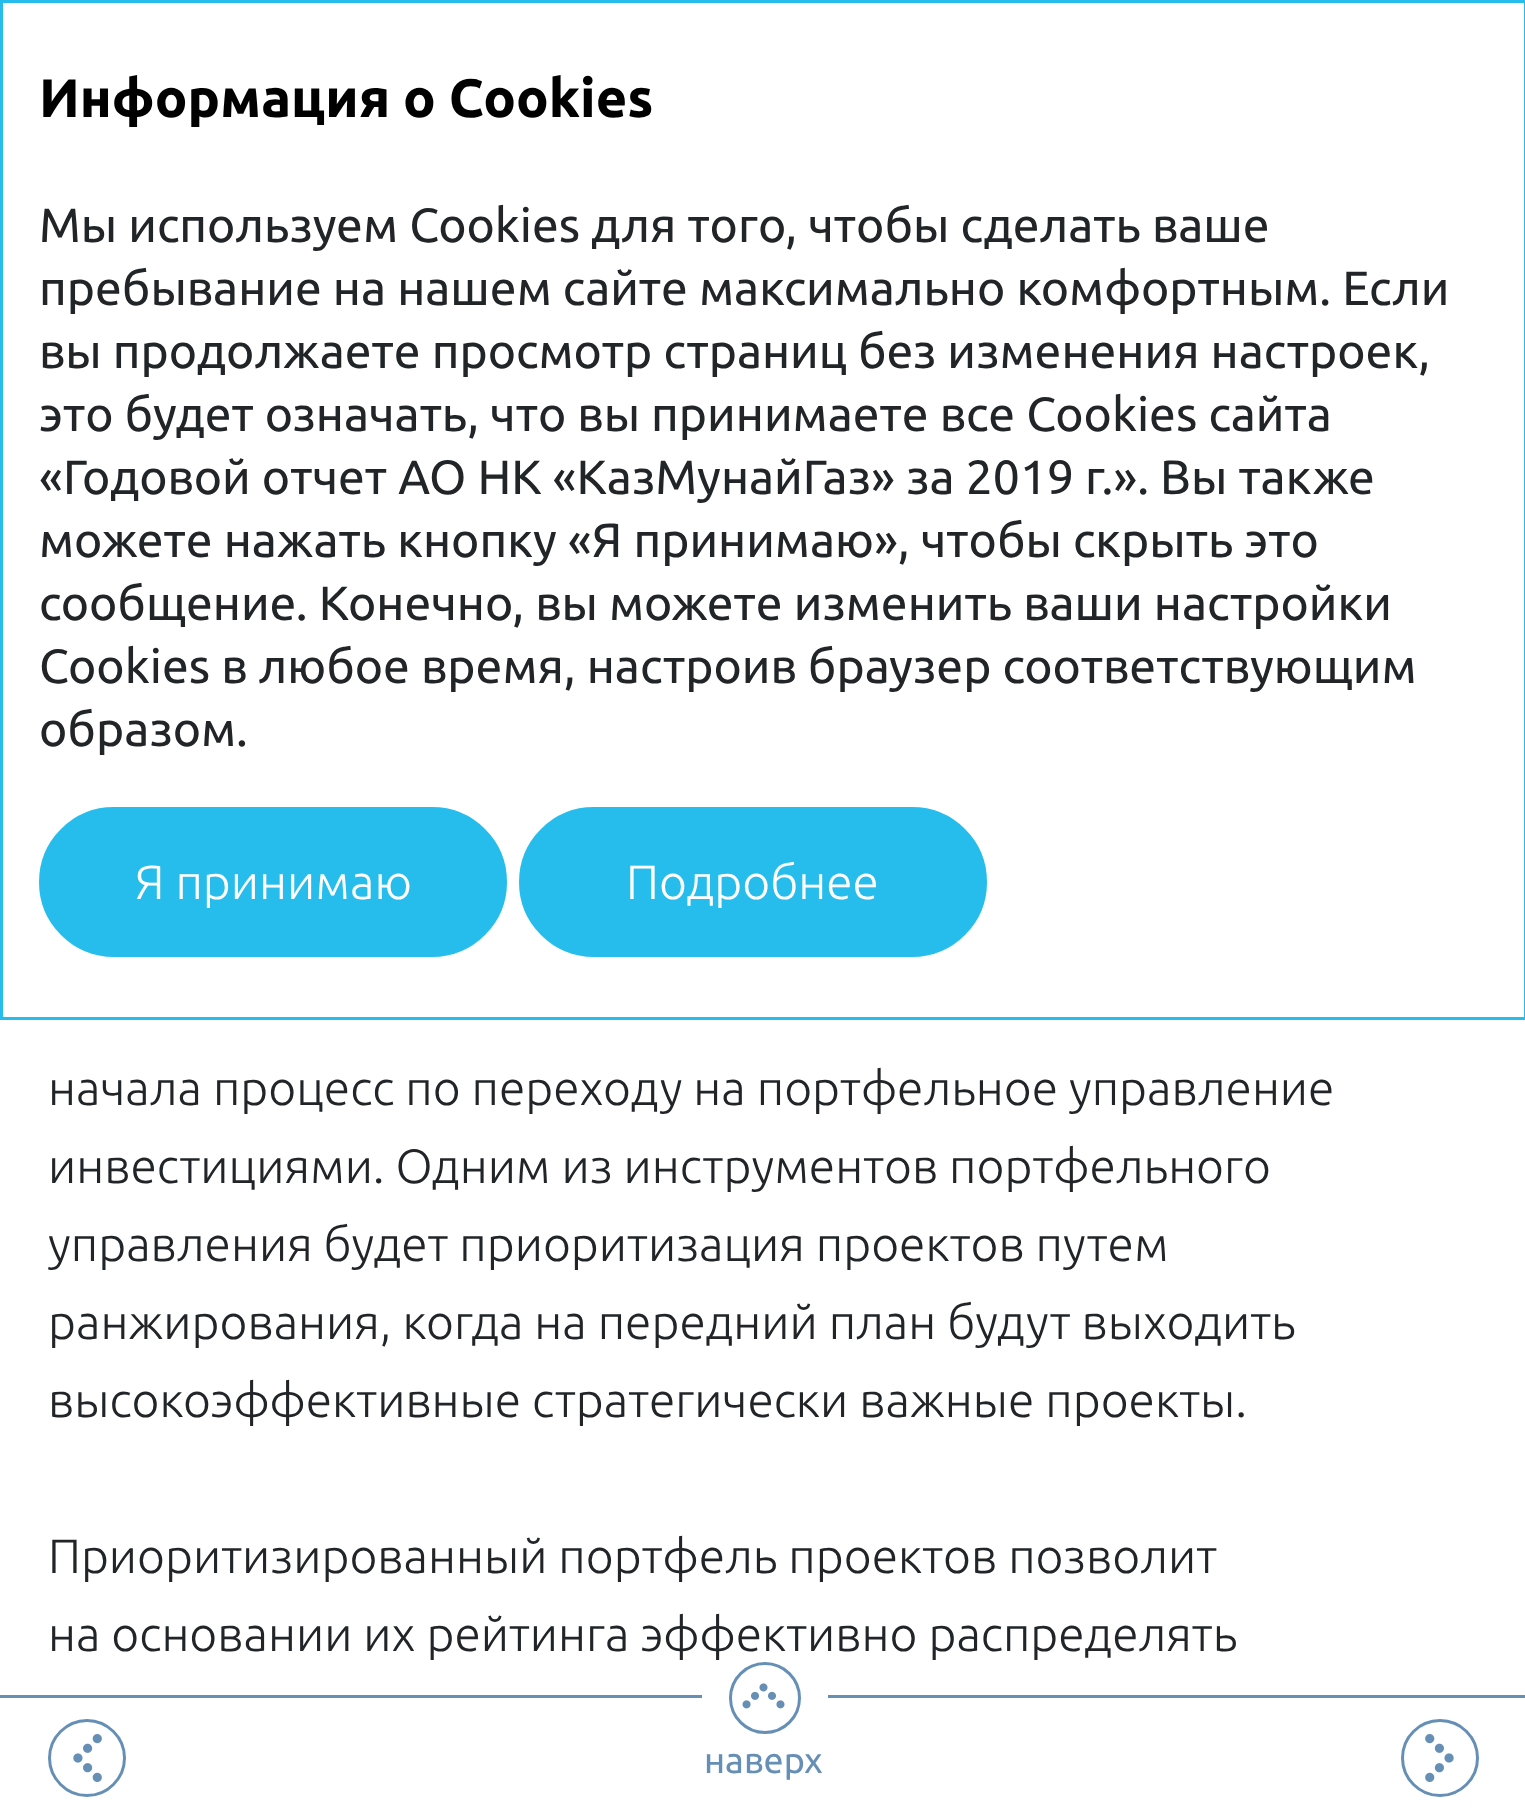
(async () => {
const canvas = document.querySelector("canvas")
canvas.width = 1525
canvas.height = 1818
const c = canvas.getContext("2d")
c.miterLimit = 4
c.fontKerning = "normal"
function T(s,x,y){c.fillText(s,x,y)}
function R(x,y,w,h){c.fillRect(x,y,w,h)}
async function I(src,x,y,w,h){const img=new Image();img.src=src;await img.decode();c.drawImage(img,x,y,w,h)}
let path
c.fillStyle="#fff"
R(0,0,1525,1818)
c.strokeStyle="#26bded"
c.lineWidth=3
c.strokeRect(1.5,1.5,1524,1017)
c.font="bold 54px Ubuntu"
c.fillStyle="#000"
T("Информация о Cookies",39,117)
c.font="48px Ubuntu"
c.fillStyle="#212528"
T("Мы используем Cookies для того, чтобы сделать ваше",39,242)
T("пребывание на нашем сайте максимально комфортным. Если",39,305)
T("вы продолжаете просмотр страниц без изменения настроек,",39,368)
T("это будет означать, что вы принимаете все Cookies сайта",39,431)
T("«Годовой отчет АО НК «КазМунайГаз» за 2019 г.». Вы также",39,494)
T("можете нажать кнопку «Я принимаю», чтобы скрыть это",39,557)
T("сообщение. Конечно, вы можете изменить ваши настройки",39,620)
T("Cookies в любое время, настроив браузер соответствующим",39,683)
T("образом.",39,746)
c.fillStyle="#26bded"
c.beginPath()
c.roundRect(42,810,462,144,72)
c.fill()
c.lineWidth=6
c.stroke()
c.font="300 48px Ubuntu"
c.fillStyle="#fff"
T("Я принимаю",135,899)
c.fillStyle="#26bded"
c.beginPath()
c.roundRect(522,810,462,144,72)
c.fill()
c.stroke()
c.fillStyle="#fff"
T("Подробнее",626,899)
c.fillStyle="#212528"
T("начала процесс по переходу на портфельное управление",48,1105)
T("инвестициями. Одним из инструментов портфельного",48,1183)
T("управления будет приоритизация проектов путем",48,1261)
T("ранжирования, когда на передний план будут выходить",48,1339)
T("высокоэффективные стратегически важные проекты.",48,1417)
T("Приоритизированный портфель проектов позволит",48,1573)
T("на основании их рейтинга эффективно распределять",48,1651)
c.fillStyle="#668fb6"
R(0,1695,1525,3)
path = new Path2D("M87 1795.5c-20.5 0-37.5-17-37.5-37.5c0-20.5 17-37.5 37.5-37.5c20.5 0 37.5 17 37.5 37.5c0 20.5-17 37.5-37.5 37.5z")
c.strokeStyle="#668fb6"
c.lineWidth=3
c.stroke(path)
await I("1.png",73,1734,29,48)
c.fillStyle="#fff"
R(702,1695,30,3)
R(798,1695,30,3)
c.beginPath()
c.arc(765,1698,34.5,0,7)
c.fill()
c.stroke()
await I("2.png",742,1683,43,26)
c.font="36px Ubuntu"
c.fillStyle="#668fb6"
T("наверх",704,1773)
c.beginPath()
c.arc(1440,1758,37.5,0,7)
c.stroke()
await I("3.png",1425,1734,29,48)
})()
